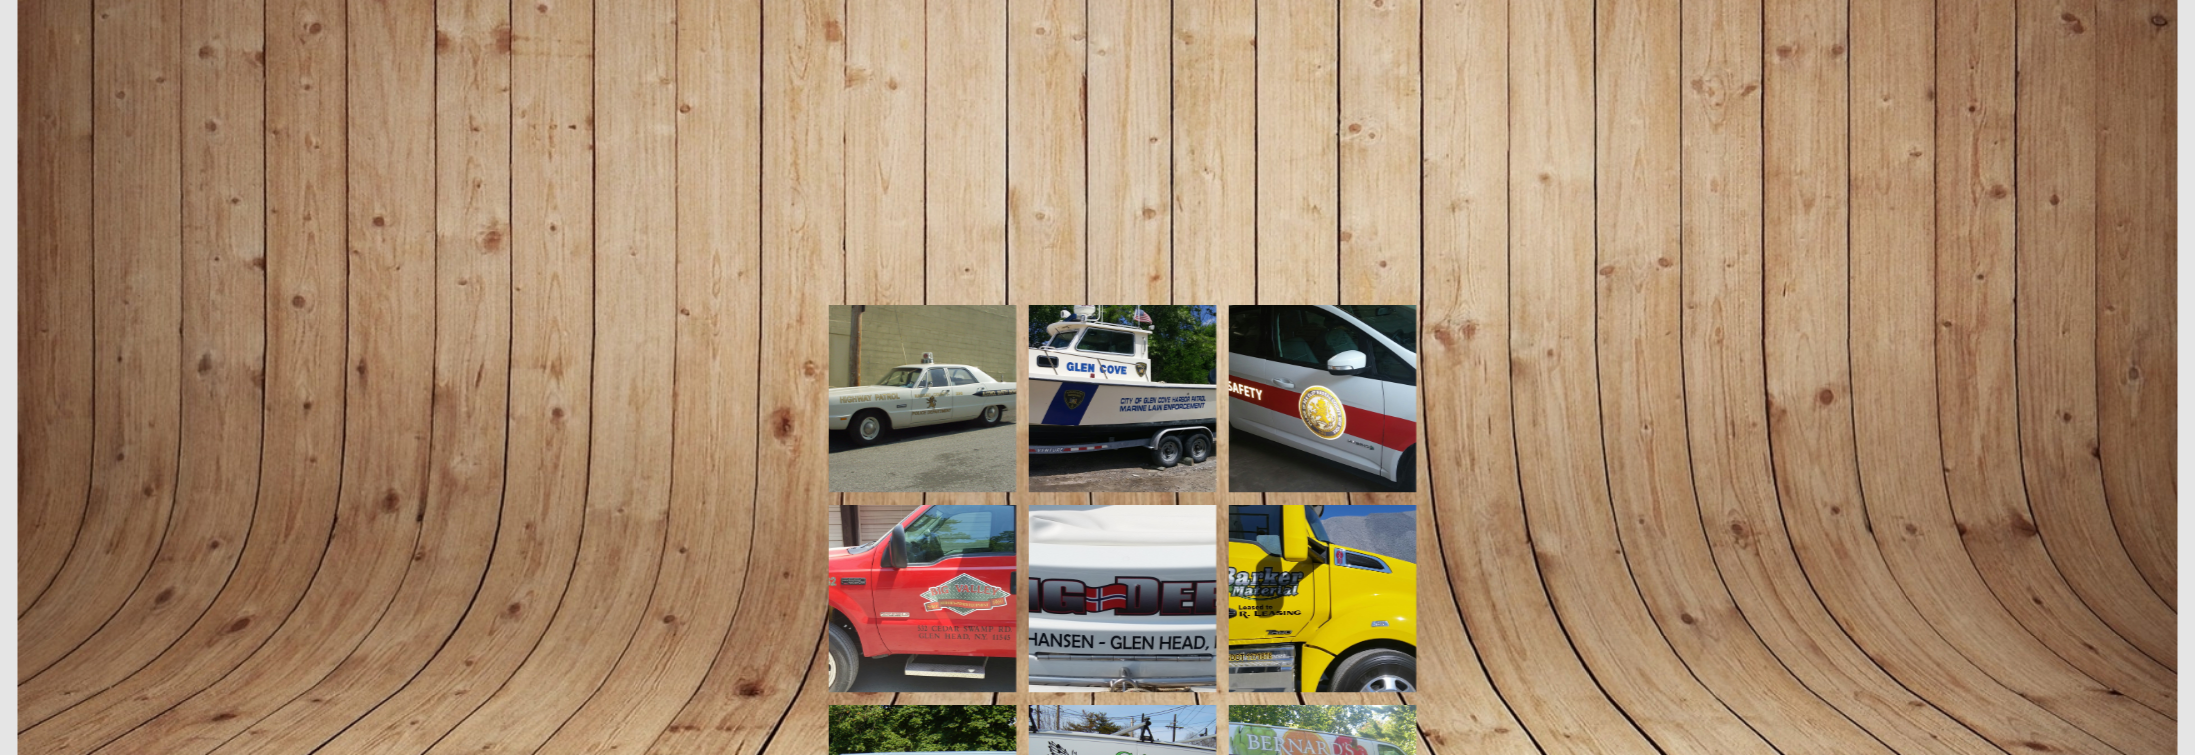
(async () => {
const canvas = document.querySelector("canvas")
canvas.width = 2195
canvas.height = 755
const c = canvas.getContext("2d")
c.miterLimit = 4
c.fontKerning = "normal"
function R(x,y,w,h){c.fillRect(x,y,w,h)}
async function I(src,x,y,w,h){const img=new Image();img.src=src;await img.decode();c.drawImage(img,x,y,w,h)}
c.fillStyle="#e5e5e5"
R(0,0,2195,755)
await I("1.png",17,0,2161,755)
await I("2.png",828,305,189,188)
await I("3.png",1028,305,189,188)
await I("4.png",1228,305,189,188)
await I("5.png",828,505,189,188)
await I("6.png",1028,505,189,188)
await I("7.png",1228,505,189,188)
await I("8.png",828,705,189,50)
await I("9.png",1028,705,189,50)
await I("10.png",1228,705,189,50)
})()
